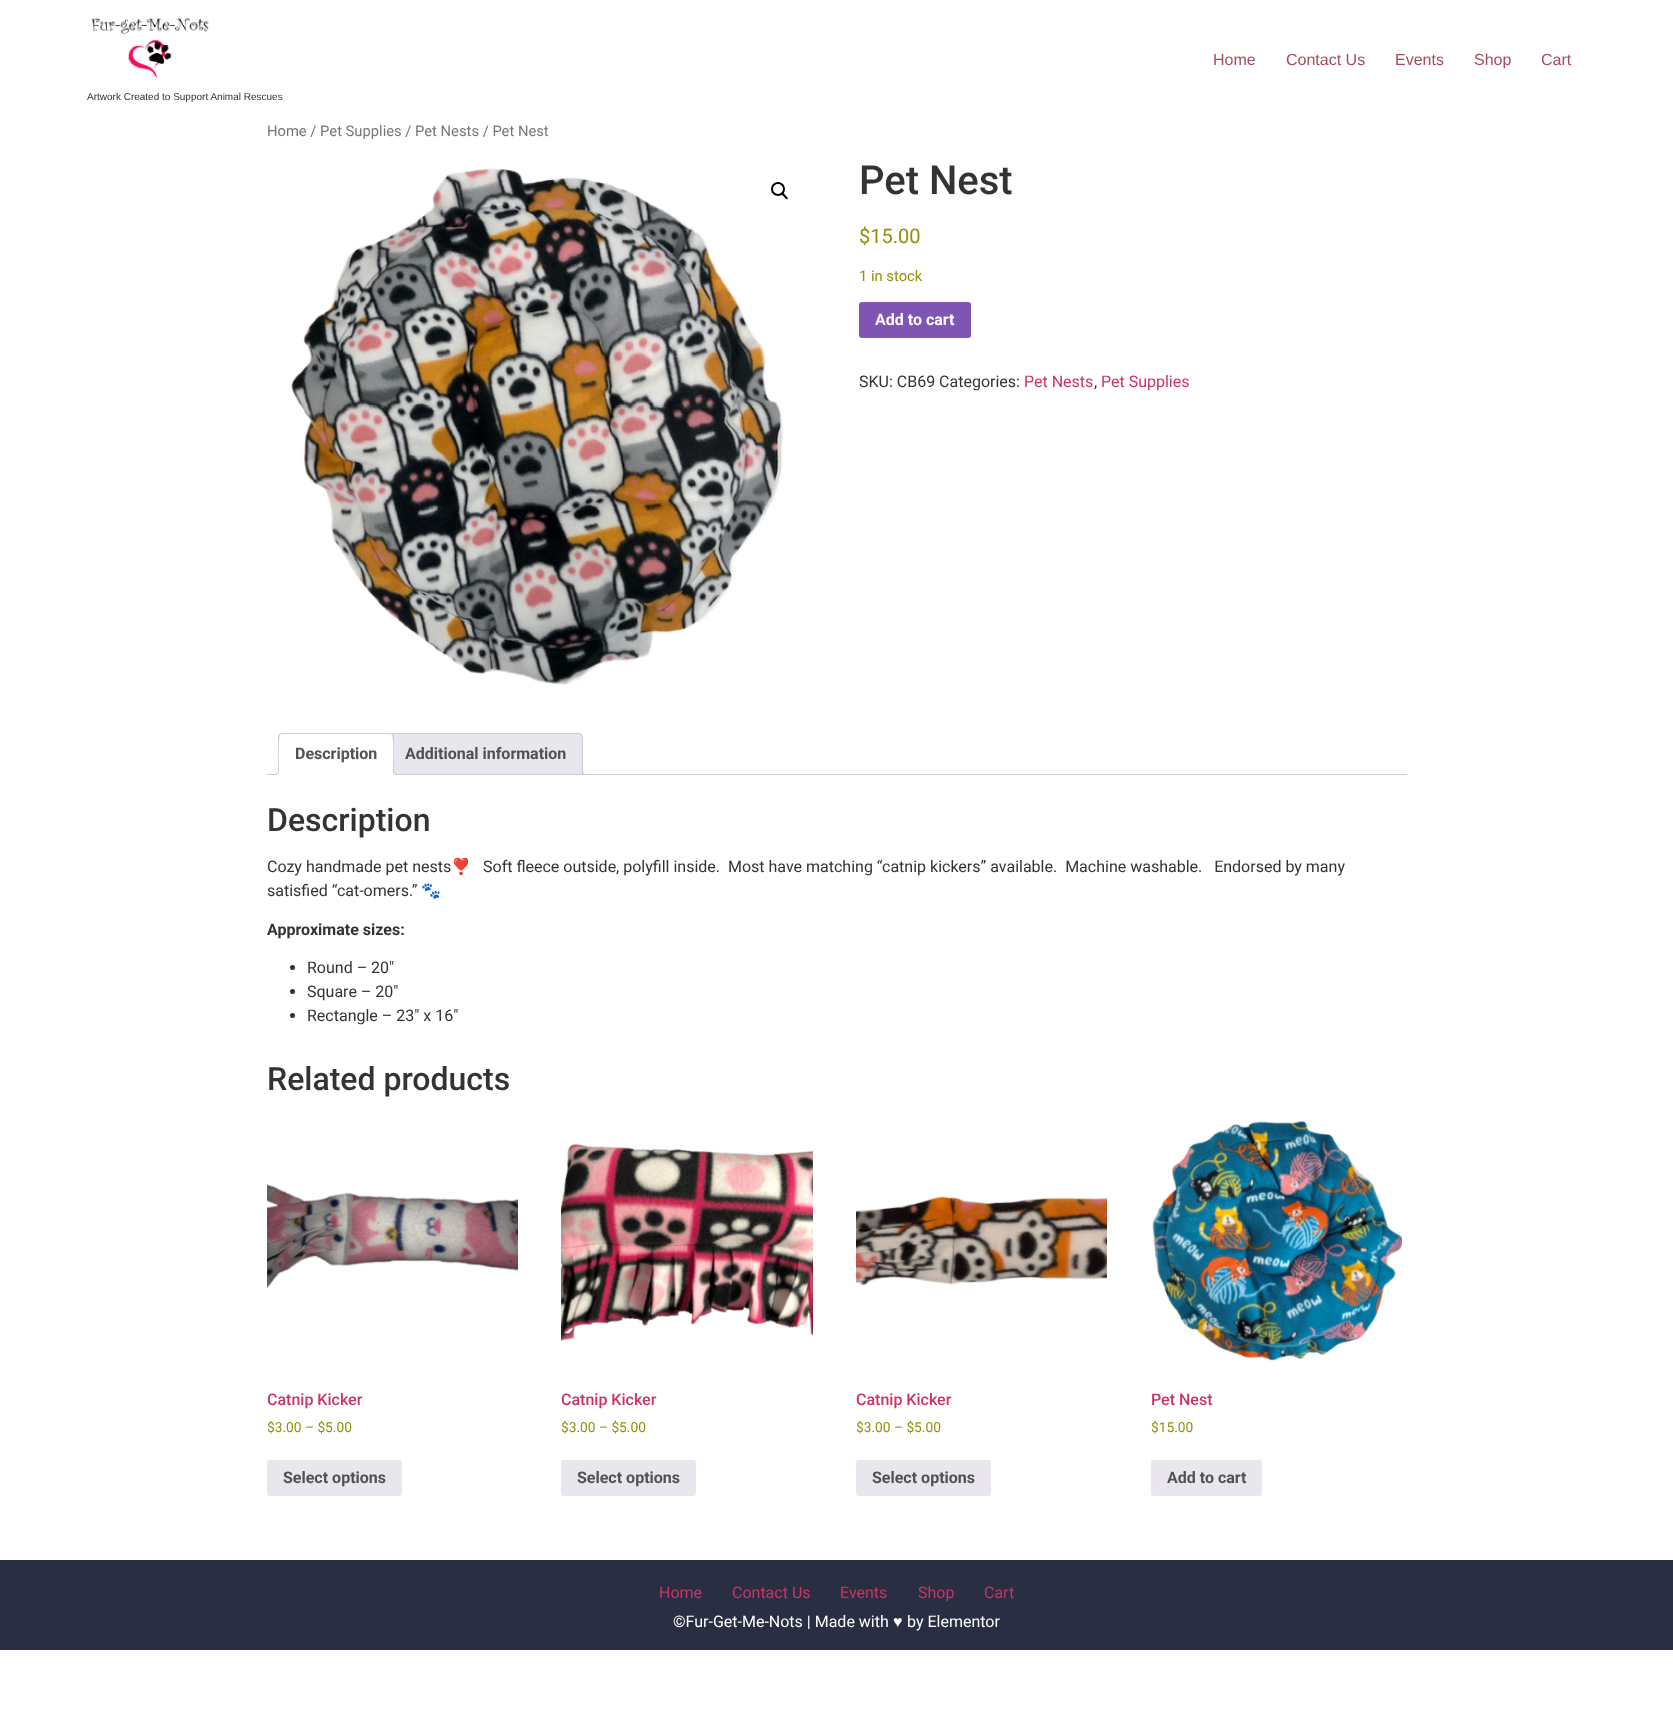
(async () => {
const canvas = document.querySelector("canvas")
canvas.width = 1673
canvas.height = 1720
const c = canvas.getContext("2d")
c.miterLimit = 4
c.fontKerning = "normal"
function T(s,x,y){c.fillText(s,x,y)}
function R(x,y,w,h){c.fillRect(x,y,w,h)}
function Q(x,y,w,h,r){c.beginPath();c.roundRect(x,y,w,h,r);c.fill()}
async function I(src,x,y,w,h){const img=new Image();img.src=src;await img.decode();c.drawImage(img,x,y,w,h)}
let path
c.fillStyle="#fff"
R(0,0,1673,1720)
c.font="16px Liberation Sans"
c.fillStyle="#a84c5d"
T("Home",1213,65)
T("Contact Us",1286,65)
T("Events",1395,65)
T("Shop",1474,65)
T("Cart",1541,65)
await I("1.png",91,17,118,62)
c.font="10px Liberation Sans"
c.fillStyle="#333"
T("Artwork Created to Support Animal Rescues",87,100)
c.font="14.75px Roboto"
c.fillStyle="#767676"
T("Home / Pet Supplies / Pet Nests / Pet Nest",267,136)
await I("2.png",291,168,493,517)
c.beginPath()
c.arc(778,189,6,0,7)
c.strokeStyle="#000"
c.lineWidth=2
c.stroke()
c.fillStyle="#000"
path = new Path2D("M782 193c1-1 3 1.5 3.5 2.5c.5 .5 3 2 2 3.5c-1 1-3-1.5-3.5-2.5c-.5-.5-3.5-2-2-3.5z")
c.fill(path)
c.font="500 40px Roboto"
c.fillStyle="#333"
T("Pet Nest",859,194)
c.font="20px Roboto"
c.fillStyle="#958e09"
T("$15.00",859,243)
c.font="14.75px Roboto"
T("1 in stock",859,281)
c.fillStyle="#7f54b3"
Q(859,302,112,36,3)
c.font="bold 16px Roboto"
c.fillStyle="#fff"
T("Add to cart",875,325)
c.font="16px Roboto"
c.fillStyle="#333"
T("SKU: CB69 Categories:",859,387)
c.fillStyle="#c36"
T("Pet Nests",1024,387)
c.fillStyle="#333"
T(",",1094,387)
c.fillStyle="#c36"
T("Pet Supplies",1101,387)
c.fillStyle="#e9e6ed"
c.beginPath()
c.roundRect(388.5,733.5,194,41,[3.5,3.5,0,0])
c.fill()
c.strokeStyle="#cfc8d8"
c.lineWidth=1
c.stroke()
c.save()
c.beginPath()
c.rect(267,733,1140,42)
c.clip()
path = new Path2D("M580 772c0 3.5 1.5 5 5 5v-2c-1.5-.5-2.5-1.5-3-3z")
c.fill(path)
c.restore()
c.fillStyle="#cfc8d8"
path = new Path2D("M582 770h5v5c-2.5 0-5-1-5-4zm1 0h4v4c-2 0-4-.5-4-3z")
c.fill(path,"evenodd")
R(267,774,1140,1)
c.fillStyle="#fff"
c.beginPath()
c.roundRect(278,733,116,42,[4,4,0,0])
c.fill()
c.fillStyle="#cfc8d8"
path = new Path2D("M282 733l-3 1l1 1l2-1h108l2 1l1-1l-3-1z")
c.fill(path)
path = new Path2D("M394 775v-38c0-1 0-2-1-3l-1 1c2 2 1 34 1 39z")
c.fill(path)
c.fillStyle="#fff"
path = new Path2D("M394 775l-1-1h-114l-1 1z")
c.fill(path)
c.fillStyle="#cfc8d8"
path = new Path2D("M278 775l1-1c0-5-1-37 1-39l-1-1l-1 3z")
c.fill(path)
c.font="bold 16px Roboto"
c.fillStyle="#515151"
T("Description",295,759)
c.save()
c.beginPath()
c.rect(267,733,1140,42)
c.clip()
c.fillStyle="#fff"
path = new Path2D("M276 775v2c3.5 0 5-1.5 5-5h-2c-.5 1.5-1.5 2.5-3 3z")
c.fill(path)
c.restore()
c.fillStyle="#cfc8d8"
path = new Path2D("M274 770h5c0 3.5-1.5 5-5 5zm0 0h4c0 3-1 4-4 4z")
c.fill(path,"evenodd")
c.save()
c.beginPath()
c.rect(267,733,1140,42)
c.clip()
c.fillStyle="#fff"
path = new Path2D("M391 772c0 3.5 1.5 5 5 5v-2c-1.5-.5-2.5-1.5-3-3z")
c.fill(path)
c.restore()
path = new Path2D("M393 770h5v5c-2.5 0-5-1-5-4zm1 0h4v4c-2 0-4-.5-4-3z")
c.fill(path,"evenodd")
c.fillStyle="#515151"
T("Additional information",405,759)
c.font="500 32px Roboto"
c.fillStyle="#333"
T("Description",267,831)
c.font="16px Roboto"
T("Cozy handmade pet nests",267,872)
c.font="16px Noto Color Emoji"
T("❣",451,872)
c.font="16px Roboto"
T("Soft fleece outside, polyfill inside.  Most have matching “catnip kickers” available.  Machine washable.   Endorsed by many",483,872)
T("satisfied “cat-omers.”",267,896)
c.font="16px Noto Color Emoji"
T("🐾",421,896)
c.font="bold 16px Roboto"
T("Approximate sizes:",267,935)
c.beginPath()
c.arc(292.5,967.5,2.5,0,7)
c.fill()
c.font="16px Roboto"
T("Round – 20″",307,973)
c.beginPath()
c.arc(292.5,991.5,2.5,0,7)
c.fill()
T("Square – 20″",307,997)
c.beginPath()
c.arc(292.5,1015.5,2.5,0,7)
c.fill()
T("Rectangle – 23″ x 16″",307,1021)
c.font="500 32px Roboto"
T("Related products",267,1090)
await I("3.png",267,1183,251,106)
c.font="500 16px Roboto"
c.fillStyle="#c36"
T("Catnip Kicker",267,1405)
c.font="13.75px Roboto"
c.fillStyle="#958e09"
T("$3.00 – $5.00",267,1432)
c.fillStyle="#e9e6ed"
Q(267,1460,135,36,3)
c.font="bold 16px Roboto"
c.fillStyle="#515151"
T("Select options",283,1483)
await I("4.png",561,1143,252,199)
c.font="500 16px Roboto"
c.fillStyle="#c36"
T("Catnip Kicker",561,1405)
c.font="13.75px Roboto"
c.fillStyle="#958e09"
T("$3.00 – $5.00",561,1432)
c.fillStyle="#e9e6ed"
Q(561,1460,135,36,3)
c.font="bold 16px Roboto"
c.fillStyle="#515151"
T("Select options",577,1483)
await I("5.png",856,1196,251,90)
c.font="500 16px Roboto"
c.fillStyle="#c36"
T("Catnip Kicker",856,1405)
c.font="13.75px Roboto"
c.fillStyle="#958e09"
T("$3.00 – $5.00",856,1432)
c.fillStyle="#e9e6ed"
Q(856,1460,135,36,3)
c.font="bold 16px Roboto"
c.fillStyle="#515151"
T("Select options",872,1483)
await I("6.png",1152,1120,250,241)
c.font="500 16px Roboto"
c.fillStyle="#c36"
T("Pet Nest",1151,1405)
c.font="13.75px Roboto"
c.fillStyle="#958e09"
T("$15.00",1151,1432)
c.fillStyle="#e9e6ed"
Q(1151,1460,111,36,3)
c.font="bold 16px Roboto"
c.fillStyle="#515151"
T("Add to cart",1167,1483)
c.fillStyle="#2a2e43"
R(0,1560,1673,90)
c.font="16px Roboto"
c.fillStyle="#c36"
T("Home",659,1598)
T("Contact Us",732,1598)
T("Events",840,1598)
T("Shop",918,1598)
T("Cart",984,1598)
c.fillStyle="#fff"
T("©Fur-Get-Me-Nots | Made with",673,1627)
c.font="16px Liberation Sans"
T("♥",893,1627)
c.font="16px Roboto"
T("by Elementor",907,1627)
})()
